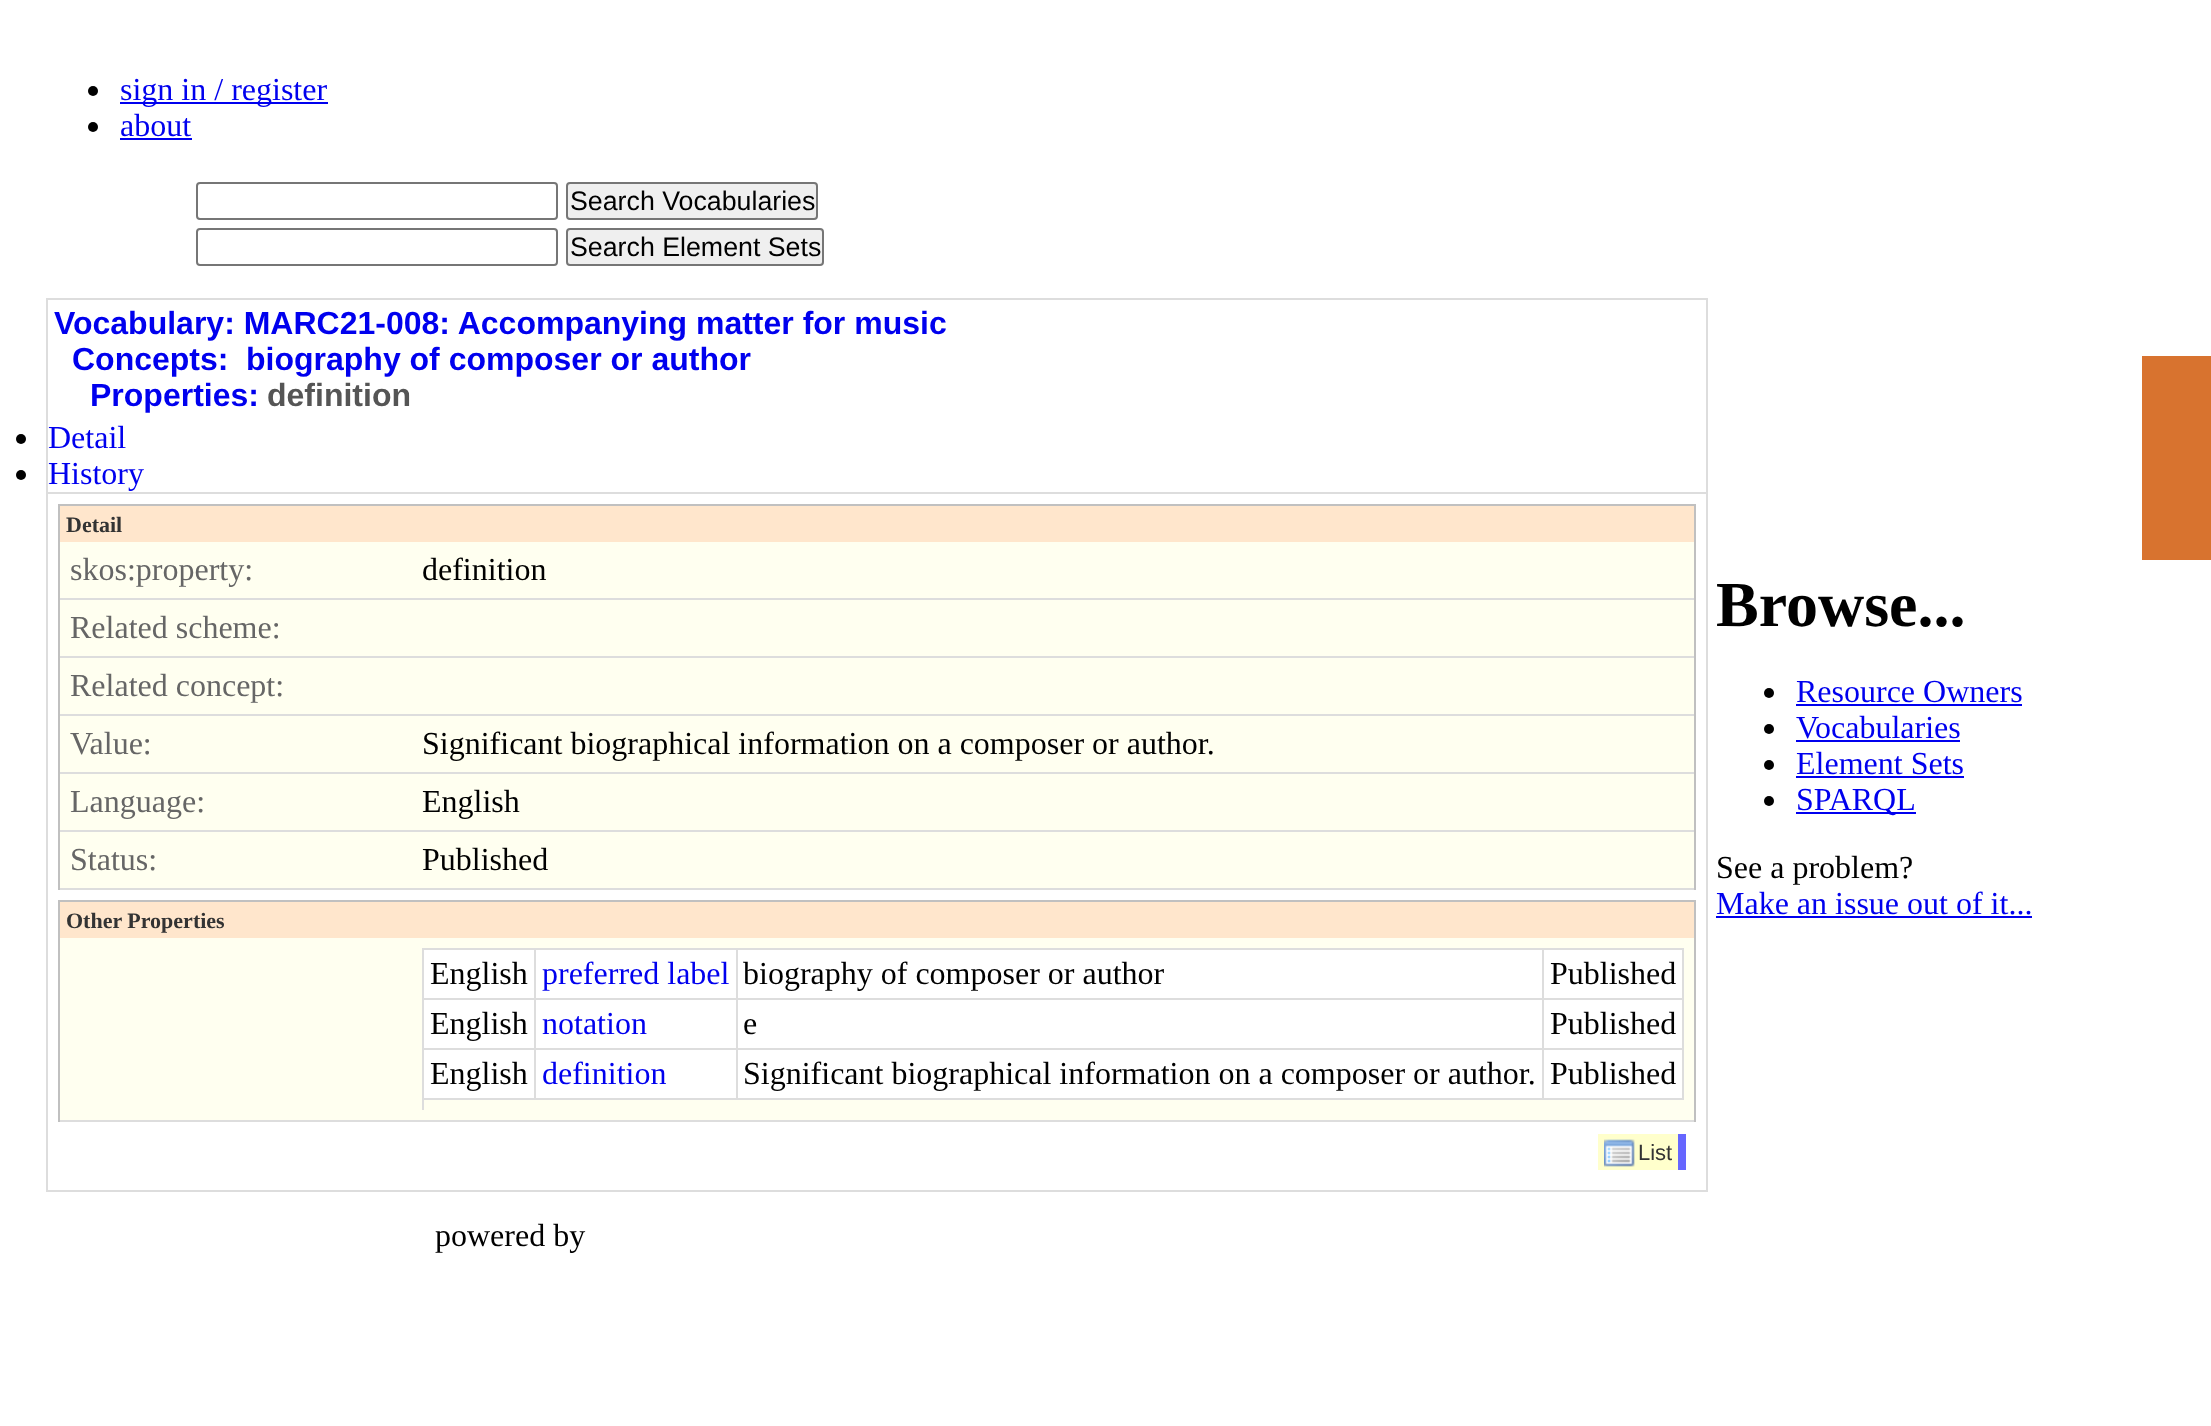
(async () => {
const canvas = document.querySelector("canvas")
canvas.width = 2211
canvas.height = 1426
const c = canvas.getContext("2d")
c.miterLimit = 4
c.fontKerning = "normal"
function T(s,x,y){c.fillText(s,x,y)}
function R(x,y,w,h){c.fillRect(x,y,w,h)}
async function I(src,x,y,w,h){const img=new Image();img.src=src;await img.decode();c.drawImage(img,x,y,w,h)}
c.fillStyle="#fff"
R(0,0,2211,1426)
c.fillStyle="#000"
c.beginPath()
c.arc(93,91,5,0,7)
c.fill()
c.fillStyle="#00e"
R(120,102,208,2)
c.font="32px Liberation Serif"
T("sign in / register",120,100)
c.fillStyle="#000"
c.beginPath()
c.arc(93,127,5,0,7)
c.fill()
c.fillStyle="#00e"
T("about",120,136)
R(120,138,72,2)
c.beginPath()
c.roundRect(197,183,360,36,3)
c.strokeStyle="#767676"
c.lineWidth=2
c.stroke()
c.fillStyle="#efefef"
c.beginPath()
c.roundRect(567,183,250,36,3)
c.fill()
c.stroke()
c.font="26.75px Liberation Sans"
c.fillStyle="#000"
T("Search Vocabularies",570,210)
c.beginPath()
c.roundRect(197,229,360,36,3)
c.stroke()
c.fillStyle="#efefef"
c.beginPath()
c.roundRect(567,229,256,36,3)
c.fill()
c.stroke()
c.fillStyle="#000"
T("Search Element Sets",570,256)
c.strokeStyle="#ddd"
c.strokeRect(47,299,1660,892)
c.font="bold 32px Liberation Sans"
c.fillStyle="#00e"
T("Vocabulary: MARC21-008: Accompanying matter for music",54,334)
T("Concepts:",72,370)
T("biography of composer or author",246,370)
T("Properties:",90,406)
c.fillStyle="#555"
T("definition",267,406)
c.fillStyle="#000"
c.beginPath()
c.arc(21,439,5,0,7)
c.fill()
c.font="32px Liberation Serif"
c.fillStyle="#00e"
T("Detail",48,448)
c.fillStyle="#000"
c.beginPath()
c.arc(21,475,5,0,7)
c.fill()
c.fillStyle="#00e"
T("History",48,484)
c.fillStyle="#ddd"
R(48,492,1658,2)
c.fillStyle="#c0c0c0"
R(58,504,1638,2)
R(1694,504,2,386)
R(58,504,2,386)
c.fillStyle="#ffe6cc"
R(60,506,1634,36)
c.font="bold 22px Liberation Serif"
c.fillStyle="#333"
T("Detail",66,532)
c.fillStyle="#fffff0"
R(60,542,1634,56)
c.fillStyle="#ddd"
R(60,598,1634,2)
c.font="32px Liberation Serif"
c.fillStyle="#666"
T("skos:property:",70,580)
c.fillStyle="#000"
T("definition",422,580)
c.fillStyle="#fffff0"
R(60,600,1634,56)
c.fillStyle="#ddd"
R(60,656,1634,2)
c.fillStyle="#666"
T("Related scheme:",70,638)
c.fillStyle="#fffff0"
R(60,658,1634,56)
c.fillStyle="#ddd"
R(60,714,1634,2)
c.fillStyle="#666"
T("Related concept:",70,696)
c.fillStyle="#fffff0"
R(60,716,1634,56)
c.fillStyle="#ddd"
R(60,772,1634,2)
c.fillStyle="#666"
T("Value:",70,754)
c.fillStyle="#000"
T("Significant biographical information on a composer or author.",422,754)
c.fillStyle="#fffff0"
R(60,774,1634,56)
c.fillStyle="#ddd"
R(60,830,1634,2)
c.fillStyle="#666"
T("Language:",70,812)
c.fillStyle="#000"
T("English",422,812)
c.fillStyle="#fffff0"
R(60,832,1634,56)
c.fillStyle="#ddd"
R(60,888,1634,2)
c.fillStyle="#666"
T("Status:",70,870)
c.fillStyle="#000"
T("Published",422,870)
c.fillStyle="#c0c0c0"
R(58,900,1638,2)
R(1694,900,2,222)
R(58,900,2,222)
c.fillStyle="#ffe6cc"
R(60,902,1634,36)
c.font="bold 22px Liberation Serif"
c.fillStyle="#333"
T("Other Properties",66,928)
c.fillStyle="#fffff0"
R(60,938,1634,182)
c.fillStyle="#ddd"
R(60,1120,1634,2)
R(422,948,1262,2)
R(422,948,2,162)
c.fillStyle="#fff"
R(424,950,110,48)
c.fillStyle="#ddd"
R(534,950,2,150)
R(424,998,112,2)
c.font="32px Liberation Serif"
c.fillStyle="#000"
T("English",430,984)
c.fillStyle="#fff"
R(536,950,200,48)
c.fillStyle="#ddd"
R(736,950,2,150)
R(536,998,202,2)
c.fillStyle="#00e"
T("preferred label",542,984)
c.fillStyle="#fff"
R(738,950,804,48)
c.fillStyle="#ddd"
R(1542,950,2,150)
R(738,998,806,2)
c.fillStyle="#000"
T("biography of composer or author",743,984)
c.fillStyle="#fff"
R(1544,950,138,48)
c.fillStyle="#ddd"
R(1682,950,2,150)
R(1544,998,140,2)
c.fillStyle="#000"
T("Published",1550,984)
c.fillStyle="#fff"
R(424,1000,110,48)
c.fillStyle="#ddd"
R(424,1048,1260,2)
c.fillStyle="#000"
T("English",430,1034)
c.fillStyle="#fff"
R(536,1000,200,48)
c.fillStyle="#00e"
T("notation",542,1034)
c.fillStyle="#fff"
R(738,1000,804,48)
c.fillStyle="#000"
T("e",743,1034)
c.fillStyle="#fff"
R(1544,1000,138,48)
c.fillStyle="#000"
T("Published",1550,1034)
c.fillStyle="#fff"
R(424,1050,110,48)
c.fillStyle="#ddd"
R(424,1098,1260,2)
c.fillStyle="#000"
T("English",430,1084)
c.fillStyle="#fff"
R(536,1050,200,48)
c.fillStyle="#00e"
T("definition",542,1084)
c.fillStyle="#fff"
R(738,1050,804,48)
c.fillStyle="#000"
T("Significant biographical information on a composer or author.",743,1084)
c.fillStyle="#fff"
R(1544,1050,138,48)
c.fillStyle="#000"
T("Published",1550,1084)
c.fillStyle="#ffc"
R(1598,1134,80,36)
await I("1.png",1604,1139,31,28)
c.fillStyle="#66f"
R(1678,1134,8,36)
c.font="22px Liberation Sans"
c.fillStyle="#333"
T("List",1638,1160)
c.font="bold 64px Liberation Serif"
c.fillStyle="#000"
T("Browse...",1716,626)
c.beginPath()
c.arc(1769,693,5,0,7)
c.fill()
c.font="32px Liberation Serif"
c.fillStyle="#00e"
T("Resource Owners",1796,702)
R(1796,704,226,2)
c.fillStyle="#000"
c.beginPath()
c.arc(1769,729,5,0,7)
c.fill()
c.fillStyle="#00e"
T("Vocabularies",1796,738)
R(1796,740,164,2)
c.fillStyle="#000"
c.beginPath()
c.arc(1769,765,5,0,7)
c.fill()
c.fillStyle="#00e"
T("Element Sets",1796,774)
R(1796,776,168,2)
c.fillStyle="#000"
c.beginPath()
c.arc(1769,801,5,0,7)
c.fill()
c.fillStyle="#00e"
R(1796,812,120,2)
T("SPARQL",1796,810)
c.fillStyle="#000"
T("See a problem?",1716,878)
c.fillStyle="#00e"
T("Make an issue out of it...",1716,914)
R(1716,916,316,2)
c.fillStyle="#d8732f"
R(2142,356,69,204)
c.fillStyle="#000"
T("powered by",435,1246)
})()
